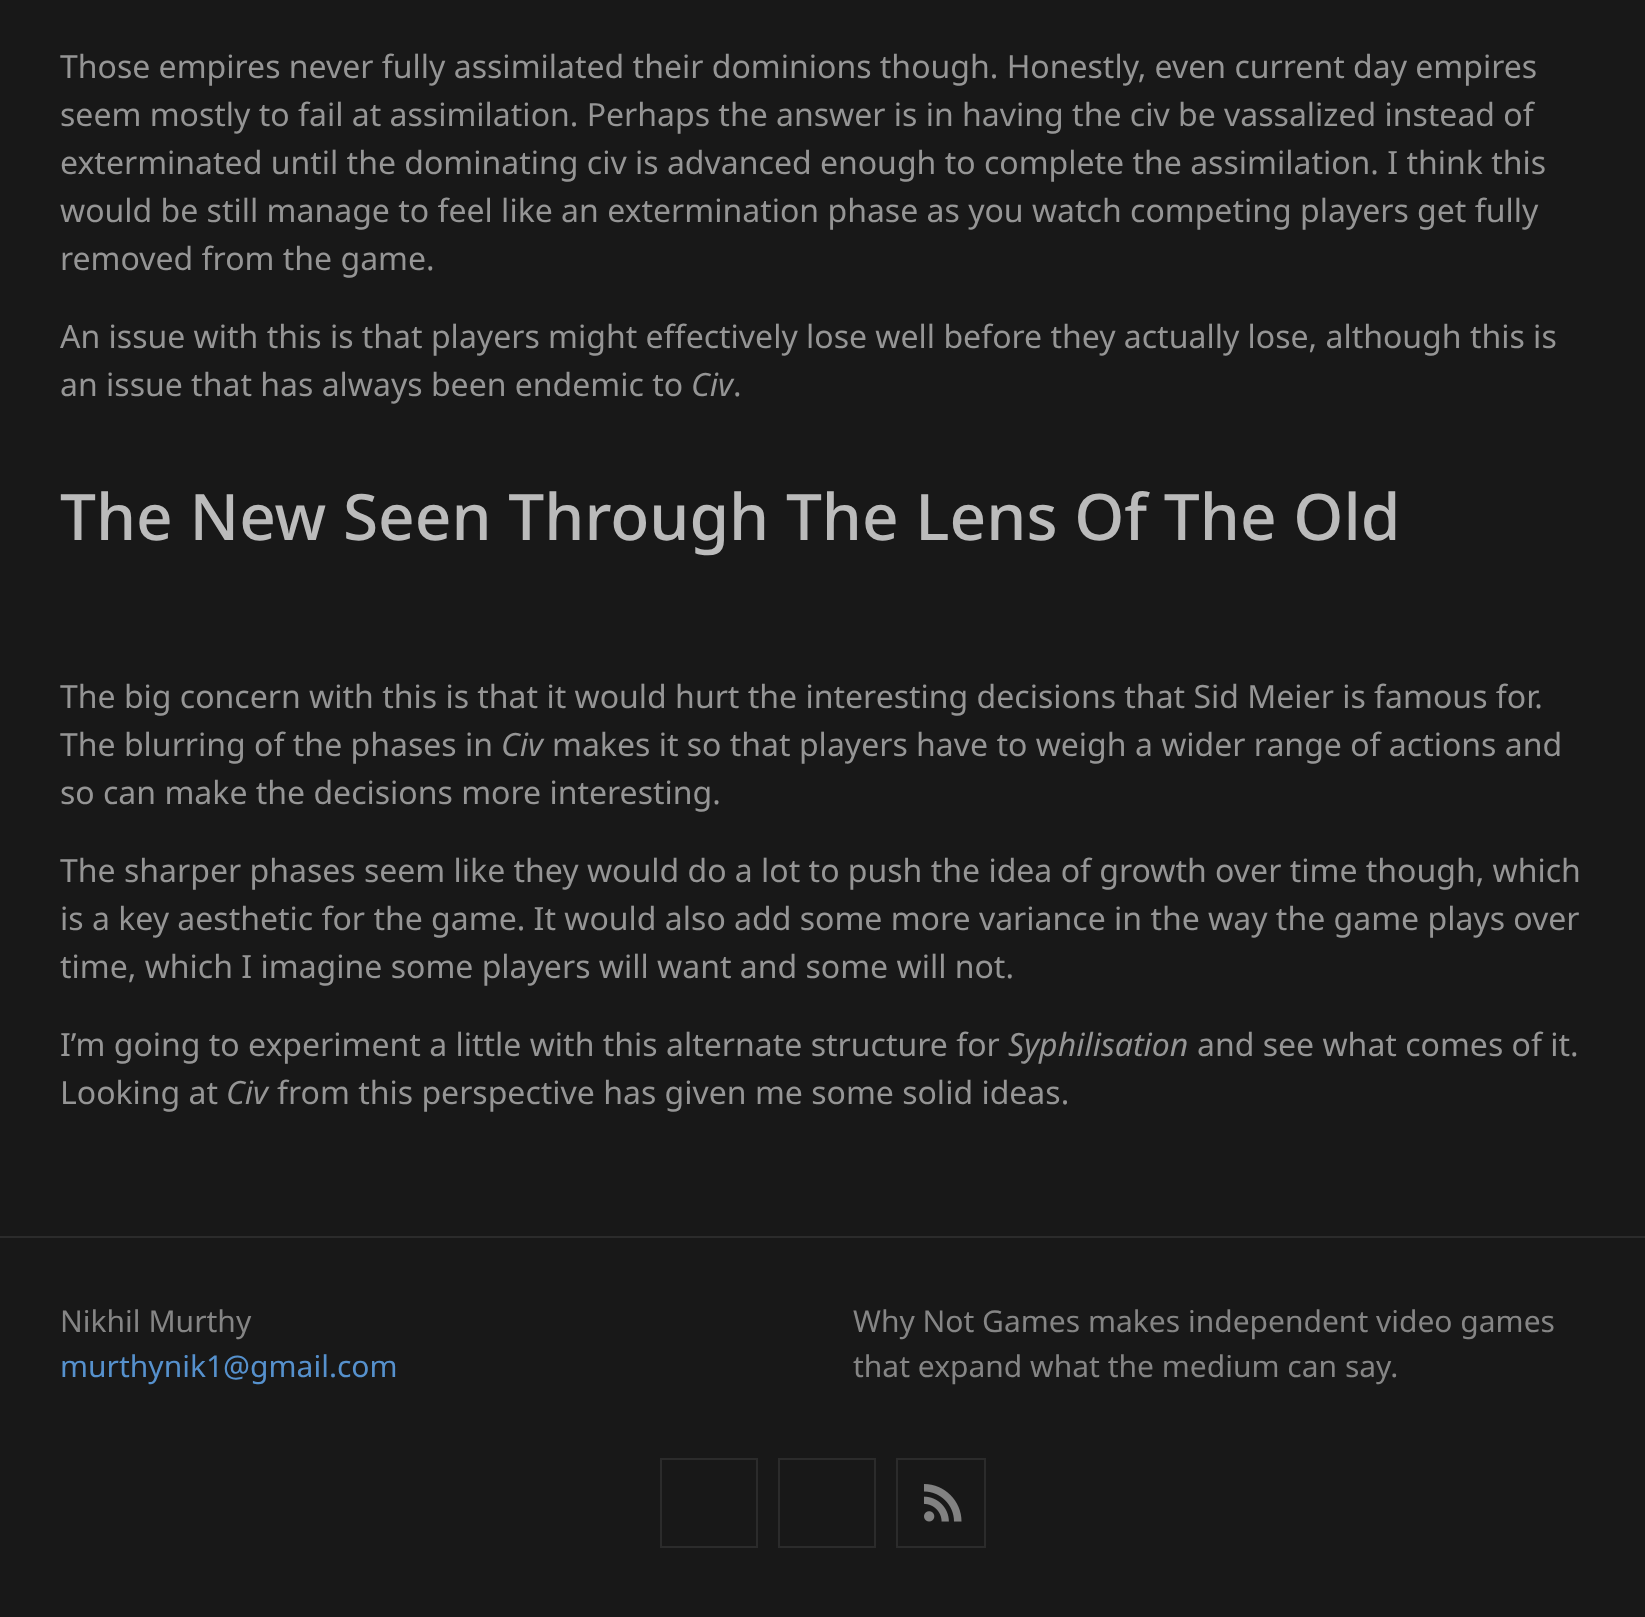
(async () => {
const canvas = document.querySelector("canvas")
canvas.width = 1645
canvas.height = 1617
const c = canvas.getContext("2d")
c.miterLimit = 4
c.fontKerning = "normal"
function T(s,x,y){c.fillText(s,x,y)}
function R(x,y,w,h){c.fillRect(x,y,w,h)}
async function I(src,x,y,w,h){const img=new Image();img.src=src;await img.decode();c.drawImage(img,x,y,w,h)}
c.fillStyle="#181818"
R(0,0,1645,1617)
c.font="32px Noto Sans"
c.fillStyle="#959595"
T("Those empires never fully assimilated their dominions though. Honestly, even current day empires",60,78)
T("seem mostly to fail at assimilation. Perhaps the answer is in having the civ be vassalized instead of",60,126)
T("exterminated until the dominating civ is advanced enough to complete the assimilation. I think this",60,174)
T("would be still manage to feel like an extermination phase as you watch competing players get fully",60,222)
T("removed from the game.",60,270)
T("An issue with this is that players might effectively lose well before they actually lose, although this is",60,348)
T("an issue that has always been endemic to",60,396)
c.font="italic 32px Noto Sans"
T("Civ",691,396)
c.font="32px Noto Sans"
T(".",733,396)
c.font="500 64px Noto Sans"
c.fillStyle="#bbb"
T("The New Seen Through The Lens Of The Old",60,540)
c.font="32px Noto Sans"
c.fillStyle="#959595"
T("The big concern with this is that it would hurt the interesting decisions that Sid Meier is famous for.",60,708)
T("The blurring of the phases in",60,756)
c.font="italic 32px Noto Sans"
T("Civ",501,756)
c.font="32px Noto Sans"
T("makes it so that players have to weigh a wider range of actions and",552,756)
T("so can make the decisions more interesting.",60,804)
T("The sharper phases seem like they would do a lot to push the idea of growth over time though, which",60,882)
T("is a key aesthetic for the game. It would also add some more variance in the way the game plays over",60,930)
T("time, which I imagine some players will want and some will not.",60,978)
T("I’m going to experiment a little with this alternate structure for",60,1056)
c.font="italic 32px Noto Sans"
T("Syphilisation",1008,1056)
c.font="32px Noto Sans"
T("and see what comes of it.",1197,1056)
T("Looking at",60,1104)
c.font="italic 32px Noto Sans"
T("Civ",226,1104)
c.font="32px Noto Sans"
T("from this perspective has given me some solid ideas.",277,1104)
c.fillStyle="#2b2b2b"
R(0,1236,1645,2)
c.font="30px Noto Sans"
c.fillStyle="#858585"
T("Nikhil Murthy",60,1332)
c.fillStyle="#5691cd"
T("murthynik1@gmail.com",60,1377)
c.fillStyle="#858585"
T("Why Not Games makes independent video games",853,1332)
T("that expand what the medium can say.",853,1377)
c.strokeStyle="#2b2b2b"
c.lineWidth=2
c.strokeRect(661,1459,96,88)
c.strokeRect(779,1459,96,88)
c.strokeRect(897,1459,88,88)
await I("1.png",924,1484,38,38)
})()
